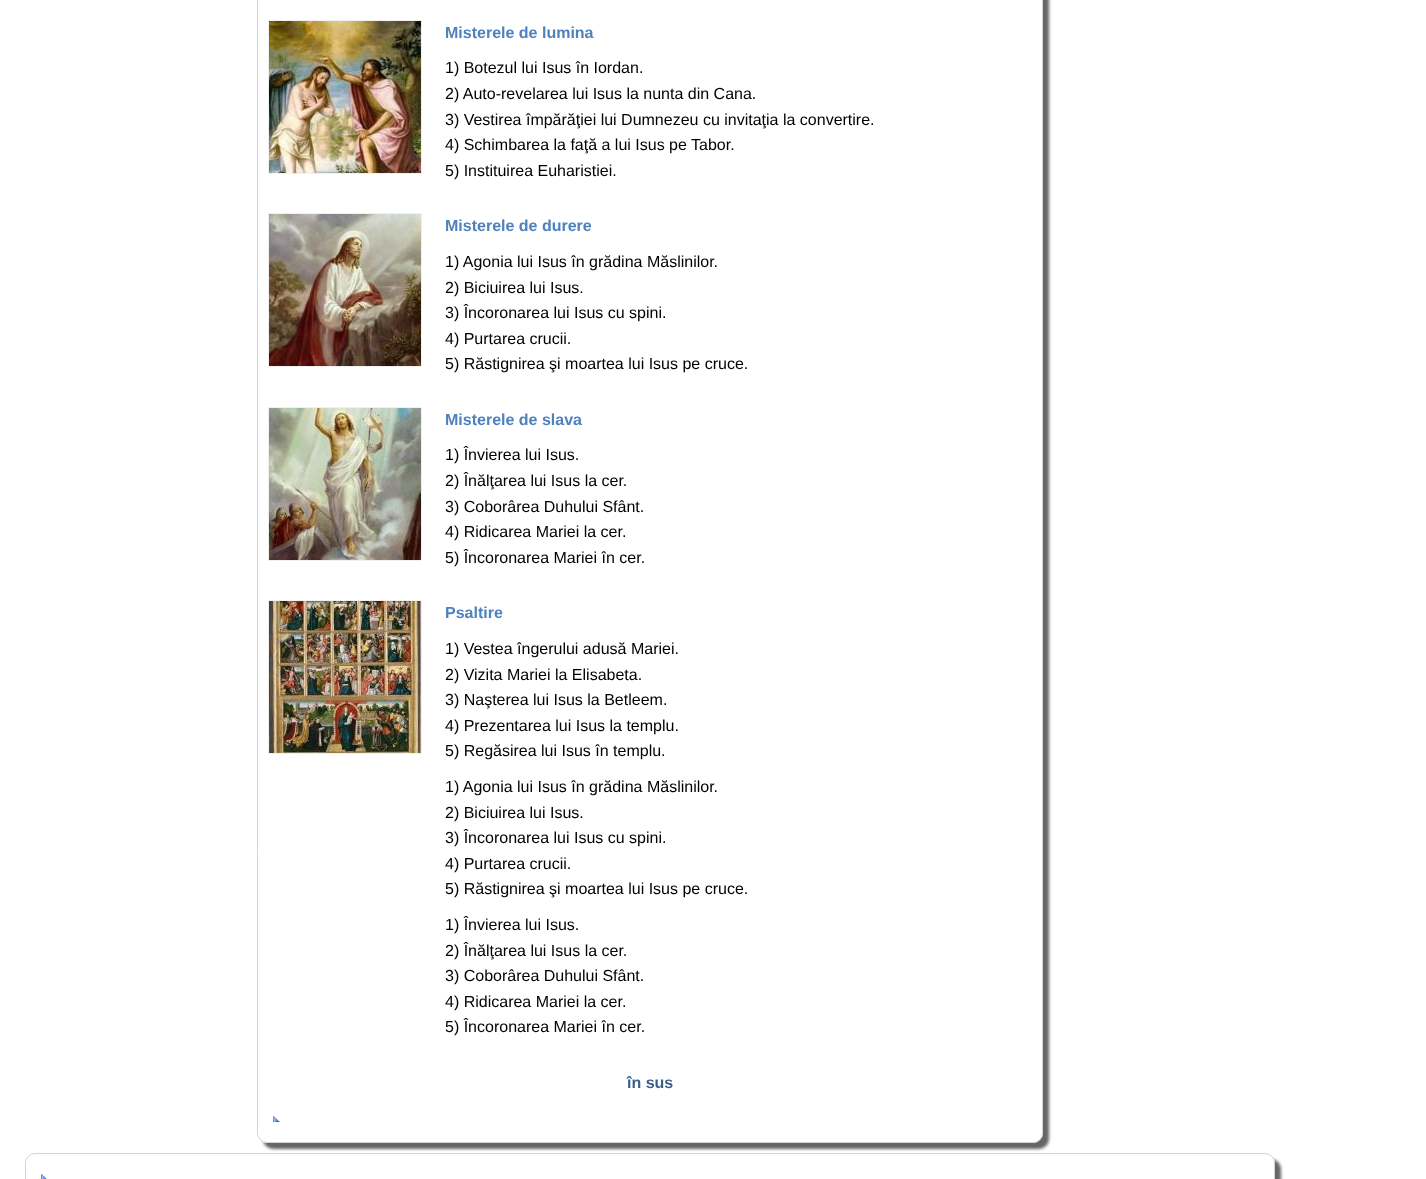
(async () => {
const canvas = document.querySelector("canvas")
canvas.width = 1426
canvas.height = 1179
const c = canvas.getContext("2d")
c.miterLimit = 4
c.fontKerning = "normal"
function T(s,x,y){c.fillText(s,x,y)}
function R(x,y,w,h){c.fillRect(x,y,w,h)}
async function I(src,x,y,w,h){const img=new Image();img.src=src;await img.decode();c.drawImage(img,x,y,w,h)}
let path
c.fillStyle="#fff"
R(0,0,1426,1179)
c.save()
path = new Path2D("M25 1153h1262v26h-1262zm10 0h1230c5.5 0 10 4.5 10 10v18c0 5.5-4.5 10-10 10h-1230c-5.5 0-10-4.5-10-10v-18c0-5.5 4.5-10 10-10z")
c.clip(path,"evenodd")
c.fillStyle="#00000099"
c.filter="blur(1.5px)"
c.beginPath()
c.roundRect(31,1159,1250,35,10)
c.fill()
c.filter="none"
c.restore()
c.beginPath()
c.roundRect(25.5,1153.5,1249,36,9.5)
c.strokeStyle="#d3d3d3"
c.stroke()
c.save()
path = new Path2D("M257 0h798v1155h-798zm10-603h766c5.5 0 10 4.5 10 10v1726c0 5.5-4.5 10-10 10h-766c-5.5 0-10-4.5-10-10v-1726c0-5.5 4.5-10 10-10z")
c.clip(path,"evenodd")
c.fillStyle="#00000099"
c.filter="blur(1.5px)"
c.beginPath()
c.roundRect(263,-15,786,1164,10)
c.fill()
c.filter="none"
c.restore()
c.beginPath()
c.roundRect(257.5,-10.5,785,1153,9.5)
c.stroke()
c.strokeStyle="#f0f0f0"
c.strokeRect(268.5,20.5,153,153)
await I("1.png",269,21,152,152)
c.font="bold 16px Liberation Sans"
c.fillStyle="#4f81bd"
T("Misterele de lumina",445,38)
c.font="16px Liberation Sans"
c.fillStyle="#000"
T("1) Botezul lui Isus în Iordan.",445,73)
T("2) Auto-revelarea lui Isus la nunta din Cana.",445,99)
T("3) Vestirea împărăţiei lui Dumnezeu cu invitaţia la convertire.",445,125)
T("4) Schimbarea la faţă a lui Isus pe Tabor.",445,150)
T("5) Instituirea Euharistiei.",445,176)
c.strokeRect(268.5,213.5,153,153)
await I("2.png",269,214,152,152)
c.font="bold 16px Liberation Sans"
c.fillStyle="#4f81bd"
T("Misterele de durere",445,231)
c.font="16px Liberation Sans"
c.fillStyle="#000"
T("1) Agonia lui Isus în grădina Măslinilor.",445,267)
T("2) Biciuirea lui Isus.",445,293)
T("3) Încoronarea lui Isus cu spini.",445,318)
T("4) Purtarea crucii.",445,344)
T("5) Răstignirea şi moartea lui Isus pe cruce.",445,369)
c.strokeRect(268.5,407.5,153,153)
await I("3.png",269,408,152,152)
c.font="bold 16px Liberation Sans"
c.fillStyle="#4f81bd"
T("Misterele de slava",445,425)
c.font="16px Liberation Sans"
c.fillStyle="#000"
T("1) Învierea lui Isus.",445,460)
T("2) Înălţarea lui Isus la cer.",445,486)
T("3) Coborârea Duhului Sfânt.",445,512)
T("4) Ridicarea Mariei la cer.",445,537)
T("5) Încoronarea Mariei în cer.",445,563)
c.strokeRect(268.5,600.5,153,153)
await I("4.png",269,601,152,152)
c.font="bold 16px Liberation Sans"
c.fillStyle="#4f81bd"
T("Psaltire",445,618)
c.font="16px Liberation Sans"
c.fillStyle="#000"
T("1) Vestea îngerului adusă Mariei.",445,654)
T("2) Vizita Mariei la Elisabeta.",445,680)
T("3) Naşterea lui Isus la Betleem.",445,705)
T("4) Prezentarea lui Isus la templu.",445,731)
T("5) Regăsirea lui Isus în templu.",445,756)
T("1) Agonia lui Isus în grădina Măslinilor.",445,792)
T("2) Biciuirea lui Isus.",445,818)
T("3) Încoronarea lui Isus cu spini.",445,843)
T("4) Purtarea crucii.",445,869)
T("5) Răstignirea şi moartea lui Isus pe cruce.",445,894)
T("1) Învierea lui Isus.",445,930)
T("2) Înălţarea lui Isus la cer.",445,956)
T("3) Coborârea Duhului Sfânt.",445,981)
T("4) Ridicarea Mariei la cer.",445,1007)
T("5) Încoronarea Mariei în cer.",445,1032)
c.font="bold 16px Liberation Sans"
c.fillStyle="#395e8a"
T("în sus",627,1088)
await I("5.png",273,1115,7,7)
await I("6.png",41,1173,6,6)
})()
